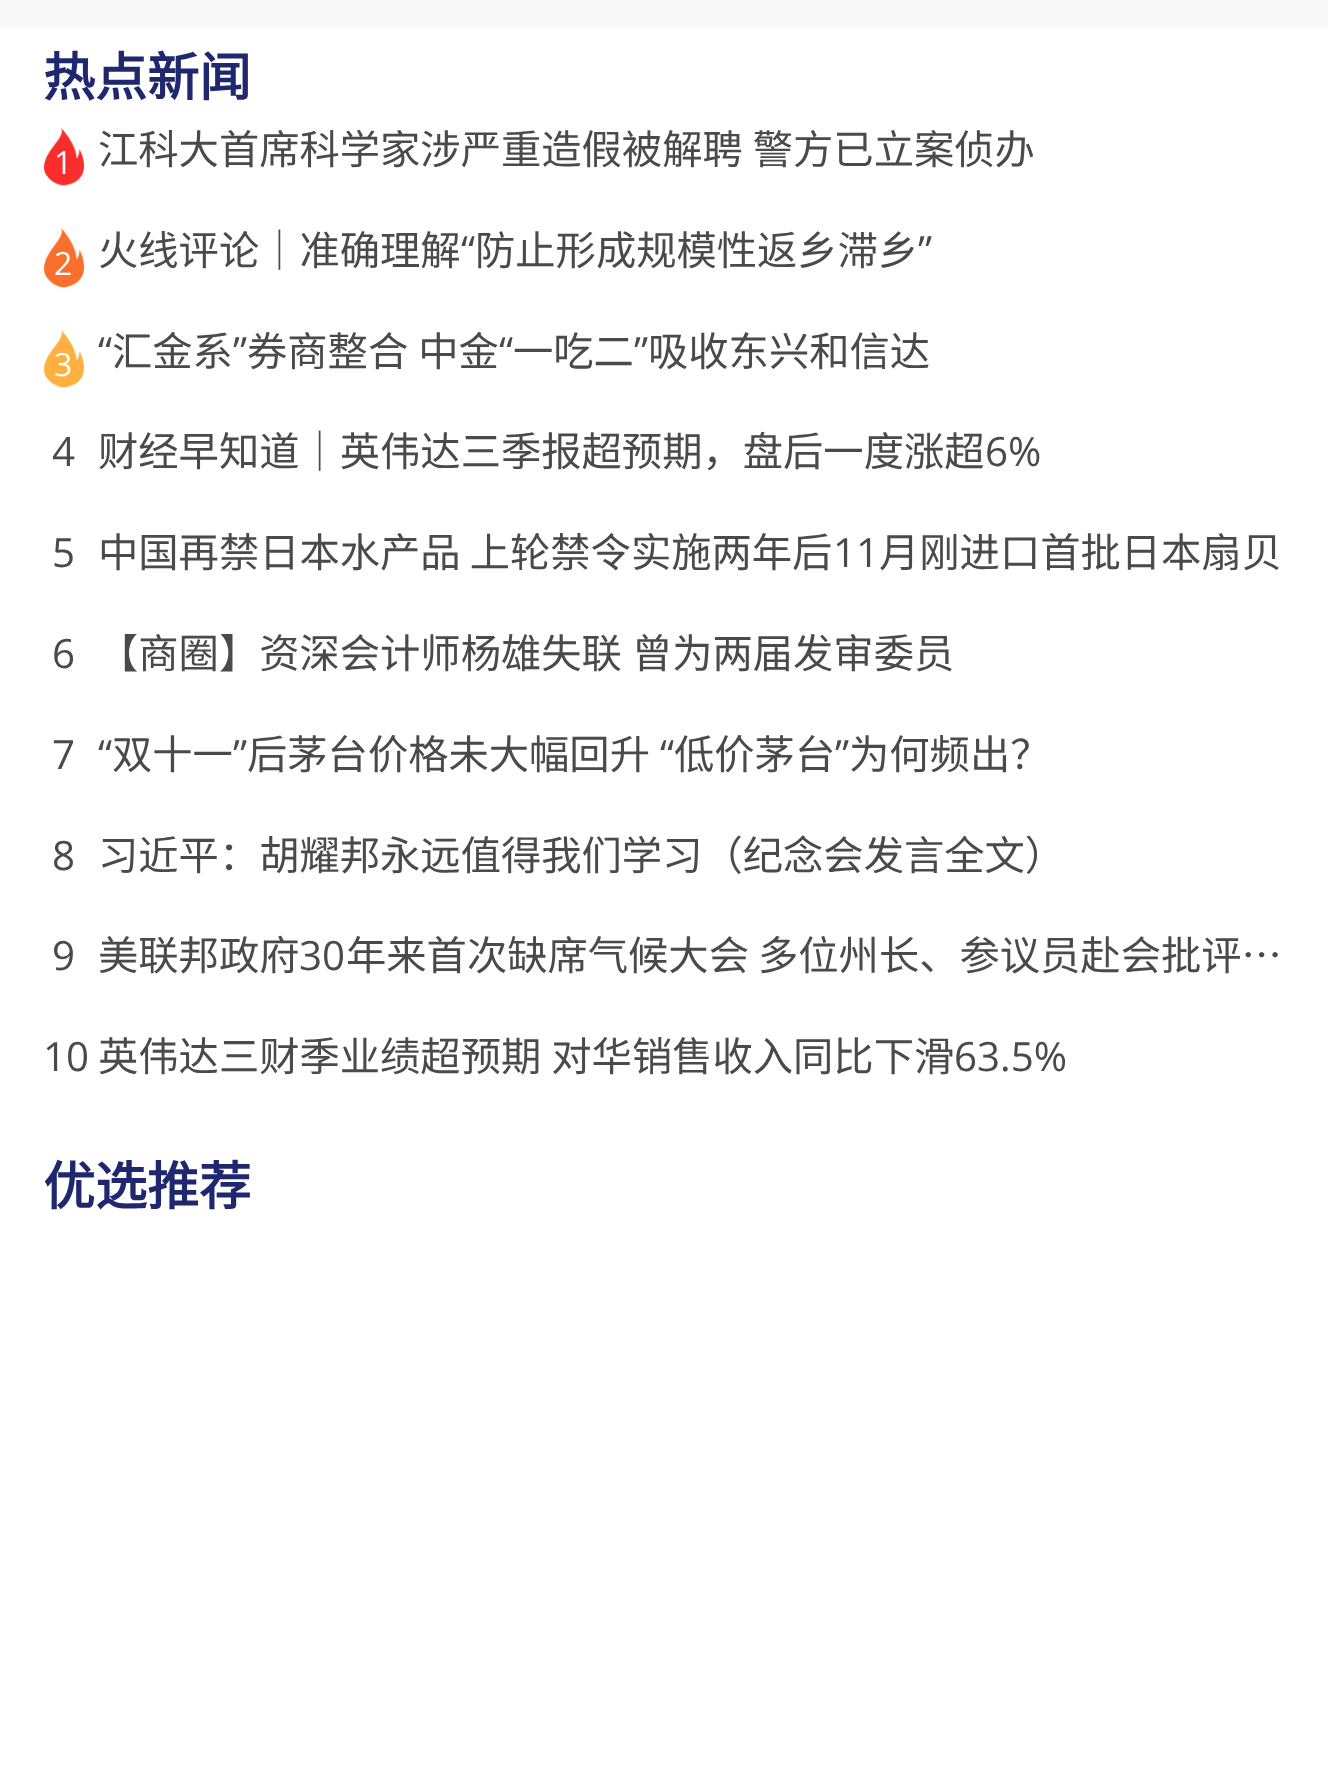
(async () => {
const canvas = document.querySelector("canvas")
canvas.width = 1328
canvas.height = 1779
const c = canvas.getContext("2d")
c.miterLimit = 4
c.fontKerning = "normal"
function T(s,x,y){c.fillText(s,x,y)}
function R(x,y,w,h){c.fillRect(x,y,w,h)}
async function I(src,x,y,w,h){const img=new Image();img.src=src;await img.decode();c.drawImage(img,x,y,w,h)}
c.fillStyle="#f8f8f8"
R(0,0,1328,1779)
c.fillStyle="#fff"
R(0,28,1328,1751)
c.font="bold 52px Noto Sans CJK SC"
c.fillStyle="#1f286f"
T("热点新闻",43,96)
await I("1.png",44,128,40,58)
c.font="32px Open Sans"
c.fillStyle="#fff"
T("1",54,174)
c.wordSpacing="1px"
c.font="40.3px Noto Sans CJK SC"
c.fillStyle="#4a4a4a"
T("江科大首席科学家涉严重造假被解聘 警方已立案侦办",98,164)
await I("2.png",44,228,40,60)
c.wordSpacing="0px"
c.font="32px Open Sans"
c.fillStyle="#fff"
T("2",54,275)
c.font="40.3px Noto Sans CJK SC"
c.fillStyle="#4a4a4a"
T("火线评论｜准确理解",98,265)
c.font="40.3px Open Sans"
T("“",461,265)
c.font="40.3px Noto Sans CJK SC"
T("防止形成规模性返乡滞乡",475,265)
c.font="40.3px Open Sans"
T("”",918,265)
await I("3.png",44,330,40,58)
c.font="32px Open Sans"
c.fillStyle="#fff"
T("3",54,376)
c.font="40.3px Open Sans"
c.fillStyle="#4a4a4a"
T("“",98,366)
c.font="40.3px Noto Sans CJK SC"
T("汇金系",112,366)
c.font="40.3px Open Sans"
T("”",233,366)
c.wordSpacing="1px"
c.font="40.3px Noto Sans CJK SC"
T("券商整合 中金",247,366)
c.wordSpacing="0px"
c.font="40.3px Open Sans"
T("“",499,366)
c.font="40.3px Noto Sans CJK SC"
T("一吃二",513,366)
c.font="40.3px Open Sans"
T("”",634,366)
c.font="40.3px Noto Sans CJK SC"
T("吸收东兴和信达",648,366)
c.font="40.3px Open Sans"
T("4",52,466)
c.font="40.3px Noto Sans CJK SC"
T("财经早知道｜英伟达三季报超预期，盘后一度涨超",98,466)
c.font="40.3px Open Sans"
T("6%",985,466)
T("5",52,567)
c.font="40.3px Noto Sans CJK SC"
T("中国再禁日本水产品 上轮禁令实施两年后",98,567)
c.font="40.3px Open Sans"
T("11",833,567)
c.font="40.3px Noto Sans CJK SC"
T("月刚进口首批日本扇贝",879,567)
c.font="40.3px Open Sans"
T("6",52,668)
c.wordSpacing="1px"
c.font="40.3px Noto Sans CJK SC"
T("【商圈】资深会计师杨雄失联 曾为两届发审委员",98,668)
c.wordSpacing="0px"
c.font="40.3px Open Sans"
T("7",52,769)
T("“",98,769)
c.font="40.3px Noto Sans CJK SC"
T("双十一",112,769)
c.font="40.3px Open Sans"
T("”",233,769)
c.font="40.3px Noto Sans CJK SC"
T("后茅台价格未大幅回升",247,769)
c.font="40.3px Open Sans"
T("“",660,769)
c.font="40.3px Noto Sans CJK SC"
T("低价茅台",674,769)
c.font="40.3px Open Sans"
T("”",835,769)
c.font="40.3px Noto Sans CJK SC"
T("为何频出？",849,769)
c.font="40.3px Open Sans"
T("8",52,870)
c.font="40.3px Noto Sans CJK SC"
T("习近平：胡耀邦永远值得我们学习（纪念会发言全文）",98,870)
c.font="40.3px Open Sans"
T("9",52,970)
c.font="40.3px Noto Sans CJK SC"
T("美联邦政府",98,970)
c.font="40.3px Open Sans"
T("30",299,970)
c.font="40.3px Noto Sans CJK SC"
T("年来首次缺席气候大会 多位州长、参议员赴会批评…",346,970)
c.font="40.3px Open Sans"
T("10",43,1071)
c.wordSpacing="1px"
c.font="40.3px Noto Sans CJK SC"
T("英伟达三财季业绩超预期 对华销售收入同比下滑",98,1071)
c.wordSpacing="0px"
c.font="40.3px Open Sans"
T("63.5%",954,1071)
c.font="bold 52px Noto Sans CJK SC"
c.fillStyle="#1f286f"
T("优选推荐",43,1205)
})()
